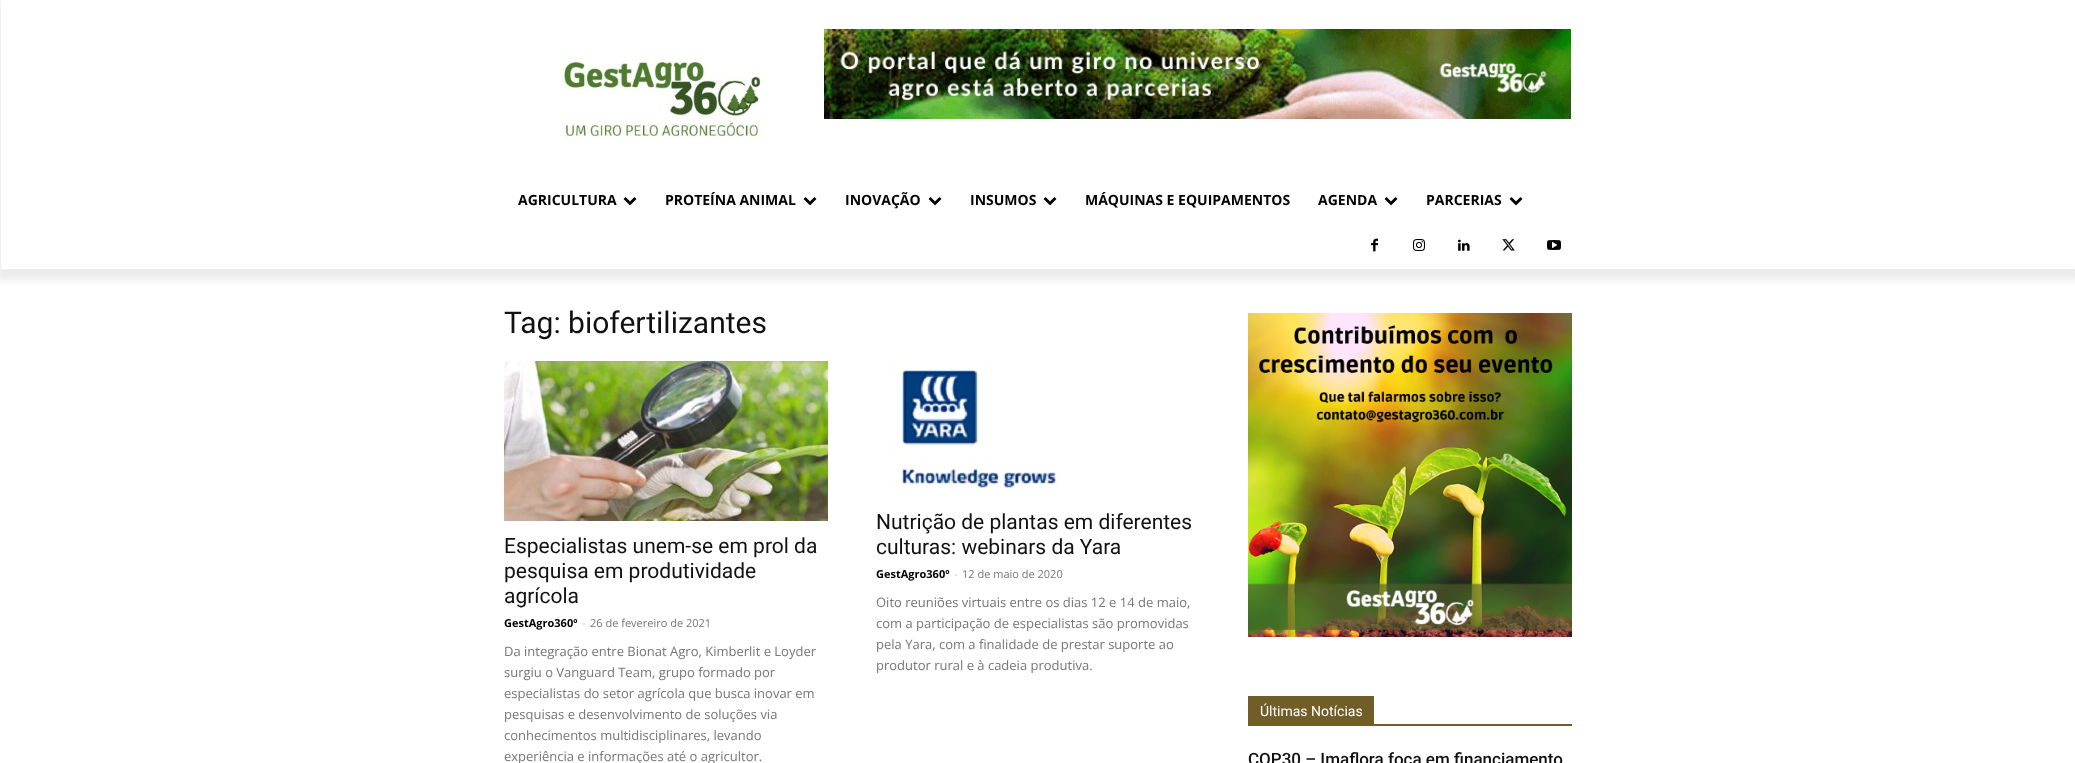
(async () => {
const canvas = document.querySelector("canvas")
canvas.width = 2075
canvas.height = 763
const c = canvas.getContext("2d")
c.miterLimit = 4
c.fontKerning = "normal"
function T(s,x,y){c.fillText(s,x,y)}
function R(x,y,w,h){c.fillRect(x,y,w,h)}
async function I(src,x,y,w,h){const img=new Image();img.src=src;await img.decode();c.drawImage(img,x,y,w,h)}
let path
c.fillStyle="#fff"
R(0,0,2075,763)
await I("1.png",560,53,203,89)
await I("2.png",824,29,747,90)
await I("4.png",1371,238,7,14)
await I("5.png",1413,239,12,12)
await I("6.png",1458,239,12,12)
await I("7.png",1502,239,13,12)
await I("8.png",1547,240,14,10)
c.save()
path = new Path2D("M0 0h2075v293h-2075zm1 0h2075v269h-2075z")
c.clip(path,"evenodd")
c.fillStyle="#00000014"
c.filter="blur(4px)"
c.beginPath()
c.rect(-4,1,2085,279)
c.fill()
c.filter="none"
c.restore()
c.font="bold 14px Open Sans"
c.fillStyle="#000"
T("AGRICULTURA",518,205)
await I("3.png",623,197,14,9)
T("PROTEÍNA ANIMAL",665,205)
await I("3.png",803,197,14,9)
T("INOVAÇÃO",845,205)
await I("3.png",928,197,14,9)
T("INSUMOS",970,205)
await I("3.png",1043,197,14,9)
T("MÁQUINAS E EQUIPAMENTOS",1085,205)
T("AGENDA",1318,205)
await I("3.png",1384,197,14,9)
T("PARCERIAS",1426,205)
await I("3.png",1509,197,14,9)
c.font="30px Roboto"
c.fillStyle="#111"
T("Tag: biofertilizantes",504,333)
await I("9.png",504,361,324,160)
c.font="21px Roboto"
T("Especialistas unem-se em prol da",504,553)
T("pesquisa em produtividade",504,578)
T("agrícola",504,603)
c.font="bold 11px Open Sans"
c.fillStyle="#000"
T("GestAgro360º",504,627)
c.font="11px Open Sans"
c.fillStyle="#ccc"
T("-",582,627)
c.fillStyle="#767676"
T("26 de fevereiro de 2021",590,627)
c.font="13px Open Sans"
T("Da integração entre Bionat Agro, Kimberlit e Loyder",504,656)
T("surgiu o Vanguard Team, grupo formado por",504,677)
T("especialistas do setor agrícola que busca inovar em",504,698)
T("pesquisas e desenvolvimento de soluções via",504,719)
T("conhecimentos multidisciplinares, levando",504,740)
T("experiência e informações até o agricultor.",504,761)
await I("10.png",892,361,168,128)
c.font="21px Roboto"
c.fillStyle="#111"
T("Nutrição de plantas em diferentes",876,529)
T("culturas: webinars da Yara",876,554)
c.font="bold 11px Open Sans"
c.fillStyle="#000"
T("GestAgro360º",876,578)
c.font="11px Open Sans"
c.fillStyle="#ccc"
T("-",954,578)
c.fillStyle="#767676"
T("12 de maio de 2020",962,578)
c.font="13px Open Sans"
T("Oito reuniões virtuais entre os dias 12 e 14 de maio,",876,607)
T("com a participação de especialistas são promovidas",876,628)
T("pela Yara, com a finalidade de prestar suporte ao",876,649)
T("produtor rural e à cadeia produtiva.",876,670)
await I("11.png",1248,313,324,324)
c.fillStyle="#705d28"
R(1248,724,324,2)
R(1248,696,126,28)
c.font="14px Roboto"
c.fillStyle="#fff"
T("Últimas Notícias",1260,716)
c.font="500 17px Roboto"
c.fillStyle="#111"
T("COP30 – Imaflora foca em financiamento",1248,765)
})()
